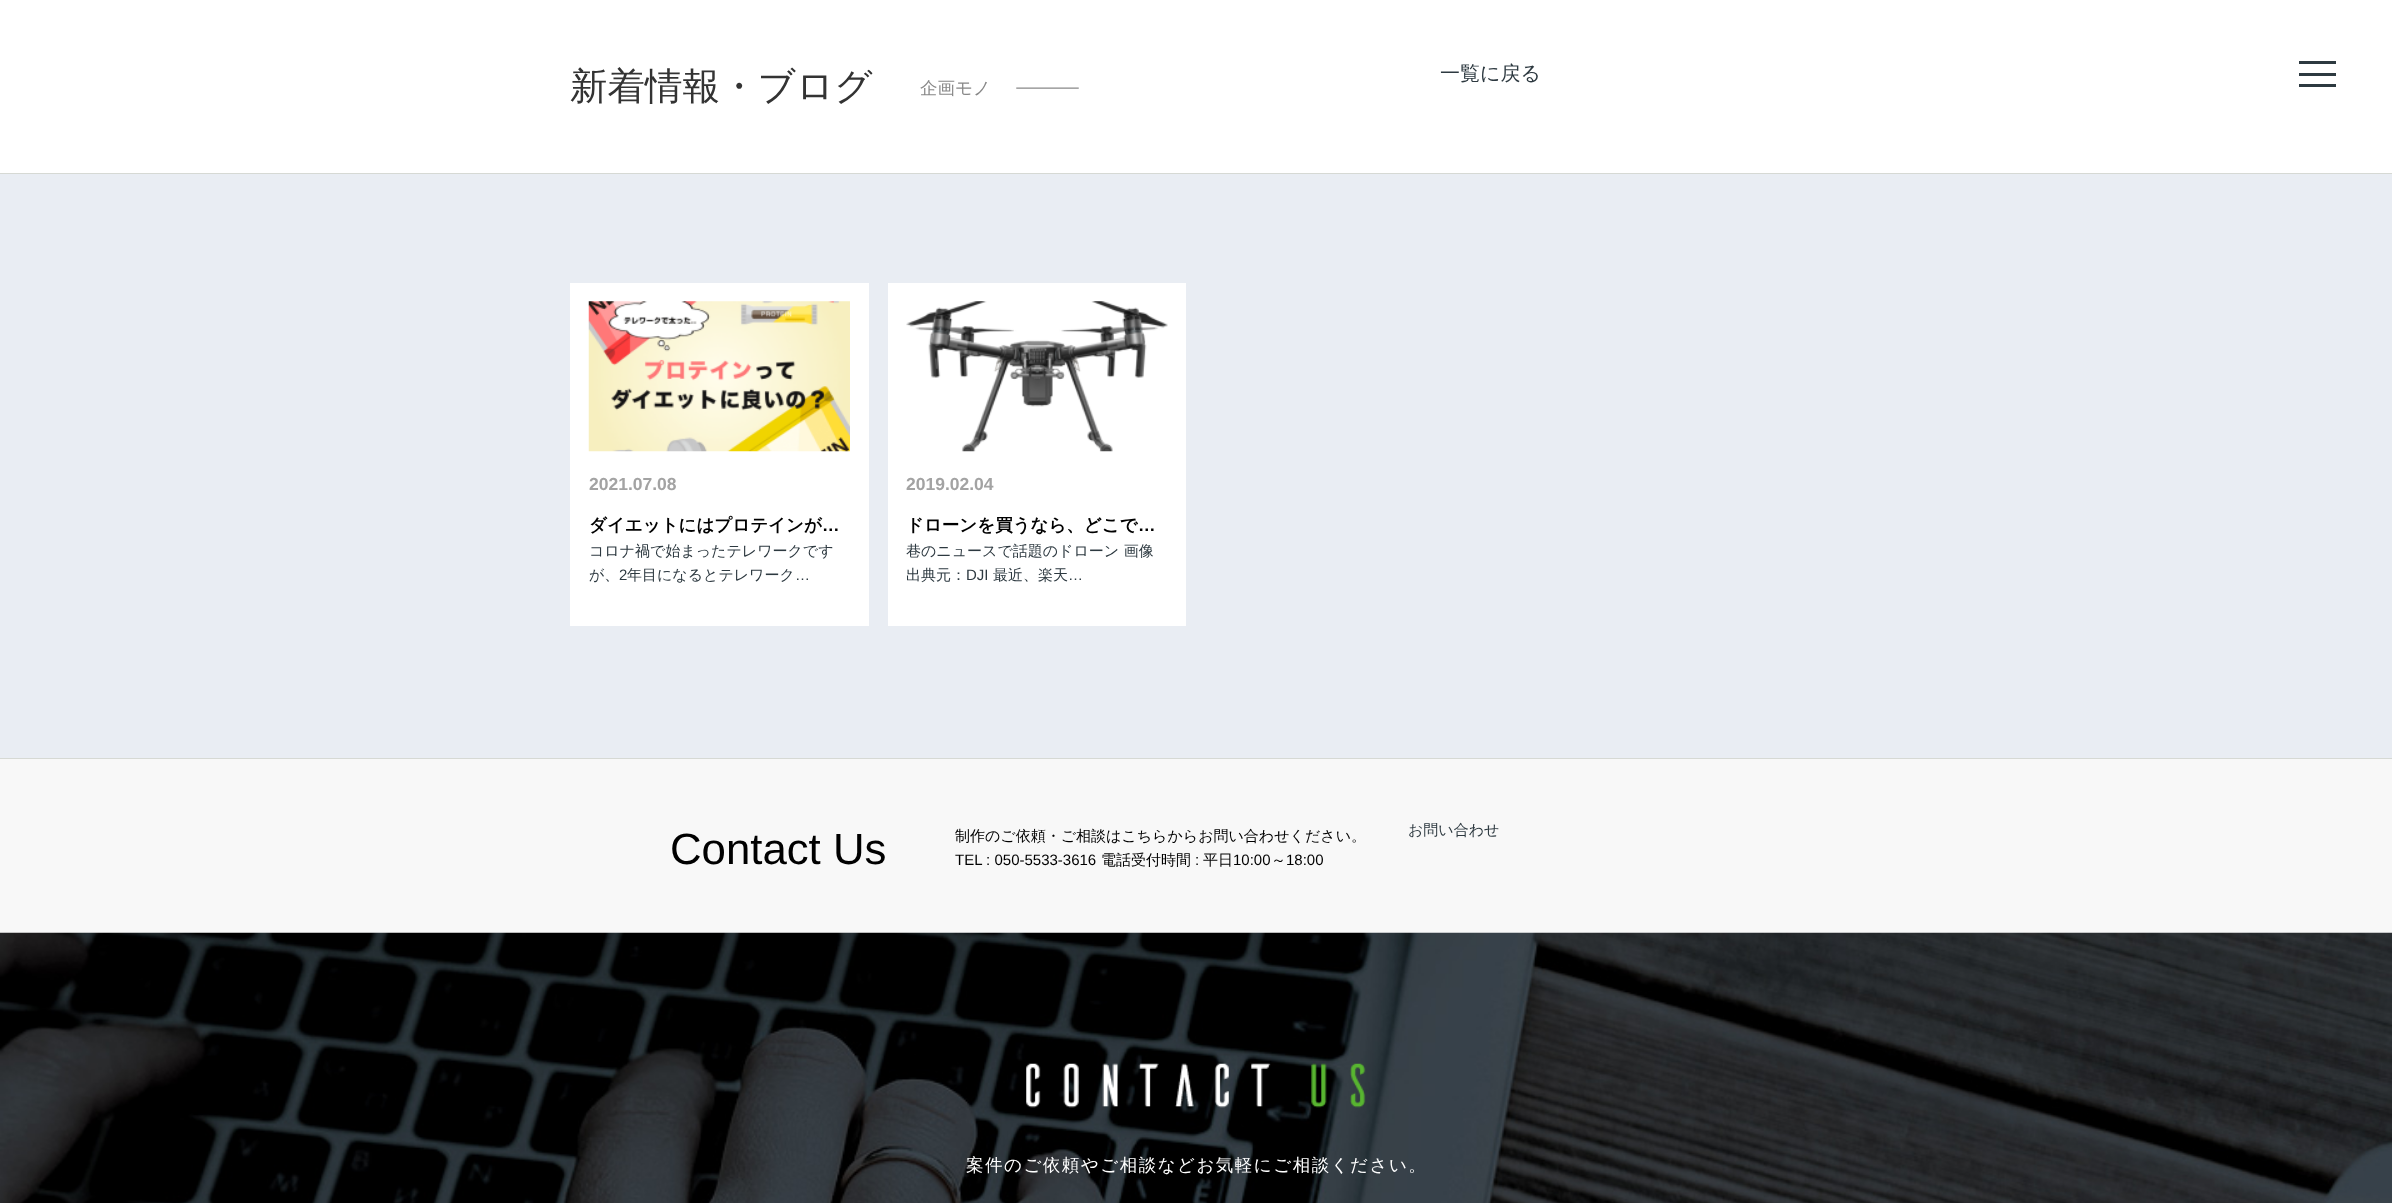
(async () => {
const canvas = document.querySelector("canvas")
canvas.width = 2392
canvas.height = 1203
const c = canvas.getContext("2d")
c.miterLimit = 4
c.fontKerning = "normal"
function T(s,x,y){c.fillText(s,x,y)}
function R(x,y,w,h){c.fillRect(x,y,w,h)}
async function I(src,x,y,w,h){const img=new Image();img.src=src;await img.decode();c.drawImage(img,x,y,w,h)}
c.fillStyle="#fff"
R(0,0,2392,1203)
c.fillStyle="#d6d9d4"
R(0,173,2392,1)
c.font="500 37.5px WenQuanYi Zen Hei"
c.fillStyle="#333"
T("新着情報・ブログ",570,99)
await I("1.png",1016,87,63,2)
c.font="500 17.5px WenQuanYi Zen Hei"
c.fillStyle="#888"
T("企画モノ",920,94)
c.font="500 20px WenQuanYi Zen Hei"
c.fillStyle="#2d3940"
T("一覧に戻る",1440,80)
c.fillStyle="#e9edf3"
R(0,174,2392,584)
c.fillStyle="#d6d9d4"
R(0,758,2392,1)
c.fillStyle="#fff"
R(570,283,299,343)
await I("2.png",588,301,262,151)
c.font="bold 17.5px Liberation Sans"
c.fillStyle="#a3a3a3"
T("2021.07.08",589,490)
c.font="bold 17.5px WenQuanYi Zen Hei"
c.fillStyle="#000"
T("ダイエットにはプロテインが",589,531)
c.font="bold 17.5px Liberation Sans"
T("…",822,531)
c.font="500 15px WenQuanYi Zen Hei"
c.fillStyle="#2d3940"
T("コロナ禍で始まったテレワークです",589,556)
T("が、",589,580)
c.font="15px Liberation Sans"
T("2",619,580)
c.font="500 15px WenQuanYi Zen Hei"
T("年目になるとテレワーク",627,580)
c.font="15px Liberation Sans"
T("…",795,580)
c.fillStyle="#fff"
R(888,283,298,343)
await I("3.png",906,301,262,151)
c.font="bold 17.5px Liberation Sans"
c.fillStyle="#a3a3a3"
T("2019.02.04",906,490)
c.font="bold 17.5px WenQuanYi Zen Hei"
c.fillStyle="#000"
T("ドローンを買うなら、どこで",906,531)
c.font="bold 17.5px Liberation Sans"
T("…",1138,531)
c.font="500 15px WenQuanYi Zen Hei"
c.fillStyle="#2d3940"
T("巷のニュースで話題のドローン 画像",906,556)
T("出典元：",906,580)
c.font="15px Liberation Sans"
T("DJI",966,580)
c.font="500 15px WenQuanYi Zen Hei"
T("最近、楽天",993,580)
c.font="15px Liberation Sans"
T("…",1068,580)
c.fillStyle="#f8f8f8"
R(0,759,2392,174)
c.font="43.75px Liberation Sans"
c.fillStyle="#000"
T("Contact Us",670,864)
c.font="500 15px WenQuanYi Zen Hei"
T("制作のご依頼・ご相談はこちらからお問い合わせください。",955,841)
c.font="15px Liberation Sans"
T("TEL : 050-5533-3616",955,865)
c.font="500 15px WenQuanYi Zen Hei"
T("電話受付時間",1101,865)
c.font="15px Liberation Sans"
T(":",1195,865)
c.font="500 15px WenQuanYi Zen Hei"
T("平日",1203,865)
c.font="15px Liberation Sans"
T("10:00",1233,865)
c.font="500 15px WenQuanYi Zen Hei"
T("～",1271,865)
c.font="15px Liberation Sans"
T("18:00",1286,865)
c.font="500 15px WenQuanYi Zen Hei"
c.fillStyle="#2d3940"
T("お問い合わせ",1408,835)
R(2299,73,37,3)
R(2299,61,37,3)
R(2299,84,37,3)
await I("4.png",0,932,2392,271)
await I("5.png",1026,1063,340,45)
c.letterSpacing="1.5px"
c.font="500 17.5px WenQuanYi Zen Hei"
c.fillStyle="#fff"
T("案件のご依頼やご相談などお気軽にご相談ください。",966,1171)
})()
